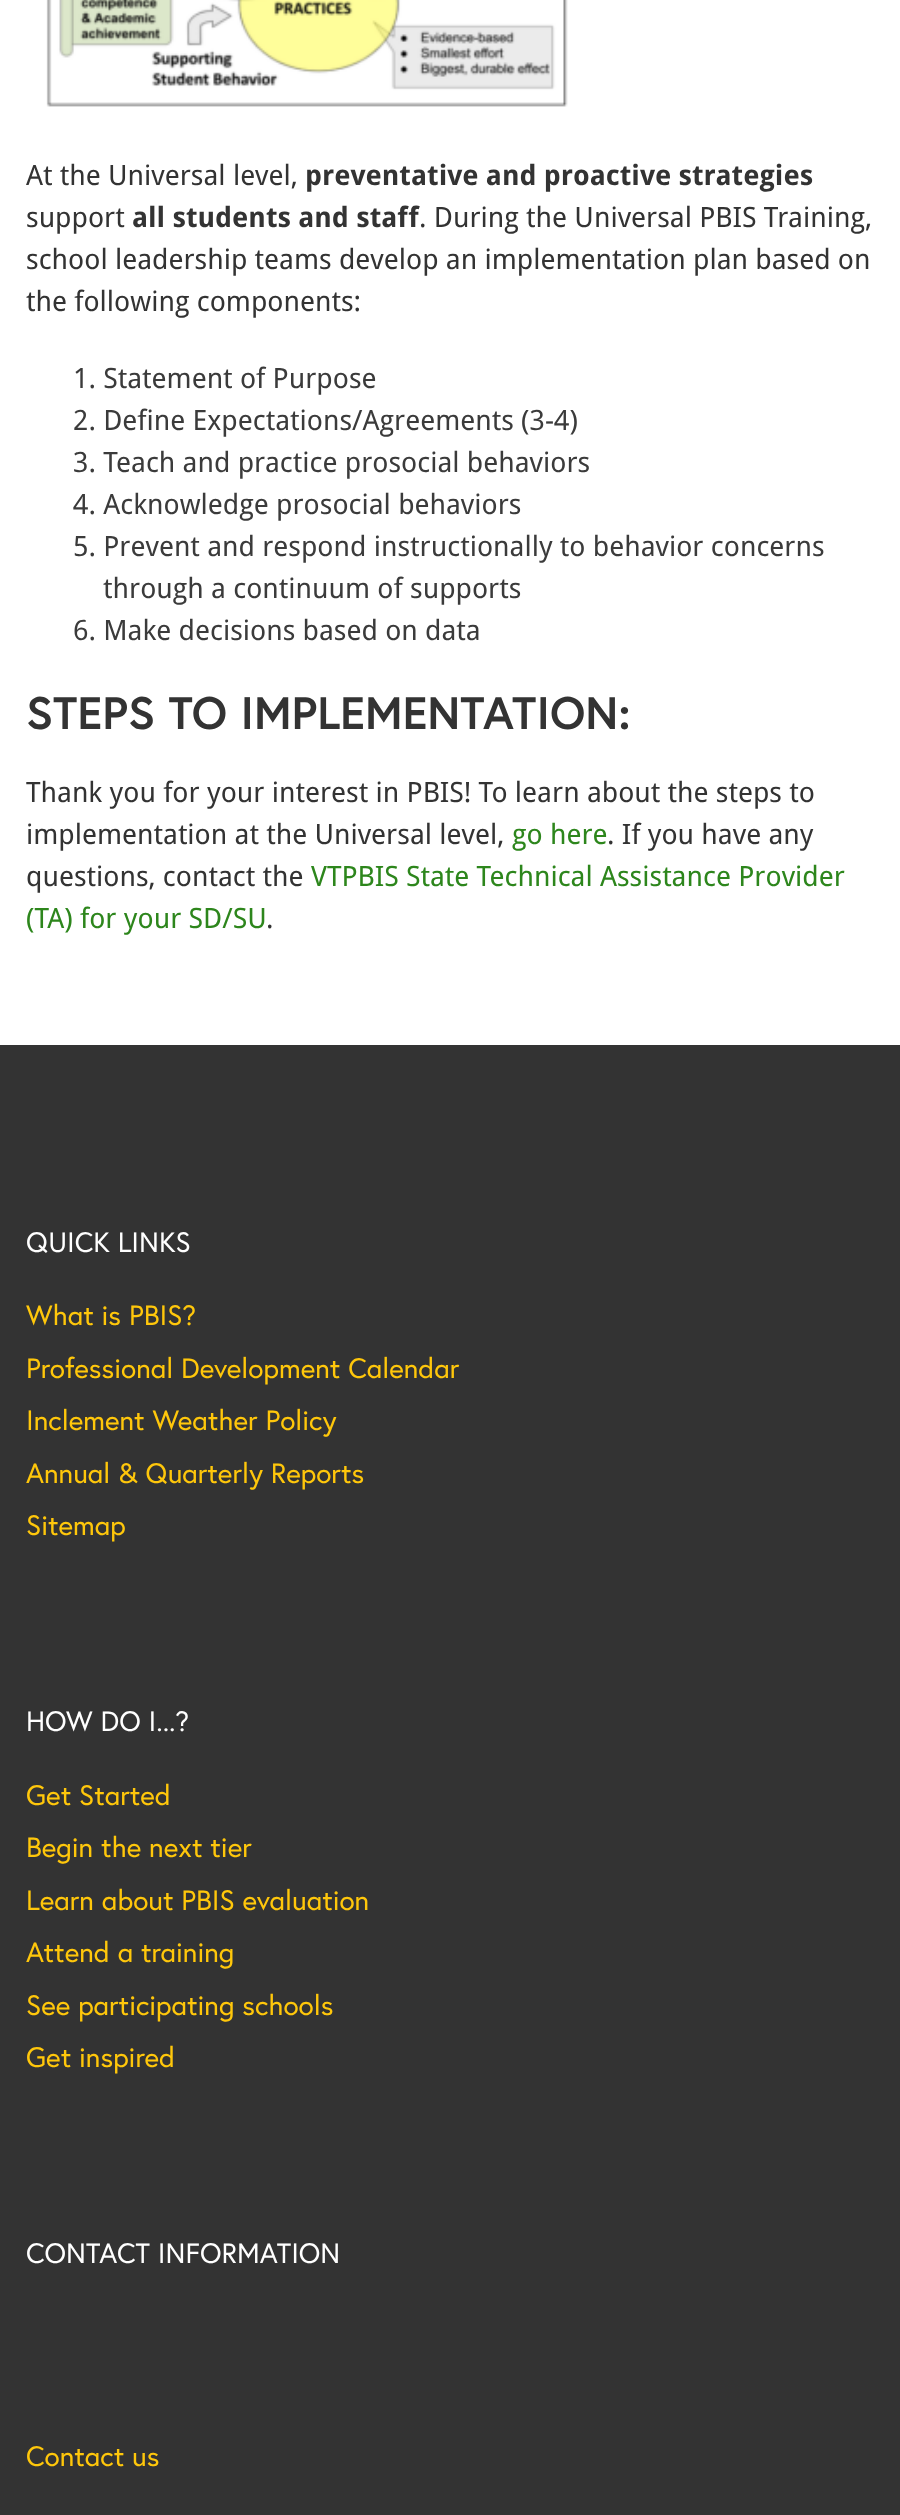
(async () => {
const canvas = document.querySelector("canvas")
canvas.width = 900
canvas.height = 2515
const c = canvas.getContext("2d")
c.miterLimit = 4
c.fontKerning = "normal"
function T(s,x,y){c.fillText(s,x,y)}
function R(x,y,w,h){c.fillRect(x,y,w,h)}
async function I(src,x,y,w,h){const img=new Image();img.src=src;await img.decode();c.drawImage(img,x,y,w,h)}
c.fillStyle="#fff"
R(0,0,900,2515)
await I("1.png",46,0,522,107)
c.font="28px Droid Sans"
c.fillStyle="#333"
T("At the Universal level,",26,185)
c.font="bold 28px Droid Sans"
T("preventative and proactive strategies",305,185)
c.font="28px Droid Sans"
T("support",26,227)
c.font="bold 28px Droid Sans"
T("all students and staff",132,227)
c.font="28px Droid Sans"
T(". During the Universal PBIS Training,",419,227)
T("school leadership teams develop an implementation plan based on",26,269)
T("the following components:",26,311)
c.fillStyle="#3b3b3b"
T("1. Statement of Purpose",73,388)
T("2. Define Expectations/Agreements (3-4)",73,430)
T("3. Teach and practice prosocial behaviors",73,472)
T("4. Acknowledge prosocial behaviors",73,514)
T("5. Prevent and respond instructionally to behavior concerns",73,556)
T("through a continuum of supports",103,598)
T("6. Make decisions based on data",73,640)
c.font="bold 45.5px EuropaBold"
c.fillStyle="#333"
T("STEPS TO IMPLEMENTATION:",26,729)
c.font="28px Droid Sans"
T("Thank you for your interest in PBIS! To learn about the steps to",26,802)
T("implementation at the Universal level,",26,844)
c.fillStyle="#2d861c"
T("go here",512,844)
c.fillStyle="#333"
T(". If you have any",607,844)
T("questions, contact the",26,886)
c.fillStyle="#2d861c"
T("VTPBIS State Technical Assistance Provider",311,886)
T("(TA) for your SD/SU",26,928)
c.fillStyle="#333"
T(".",266,928)
R(0,1045,900,1470)
c.font="28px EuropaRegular"
c.fillStyle="#fff"
T("QUICK LINKS",26,1252)
c.fillStyle="#ffc70b"
T("What is PBIS?",26,1325)
T("Professional Development Calendar",26,1378)
T("Inclement Weather Policy",26,1430)
T("Annual & Quarterly Reports",26,1483)
T("Sitemap",26,1535)
c.fillStyle="#fff"
T("HOW DO I...?",26,1731)
c.fillStyle="#ffc70b"
T("Get Started",26,1805)
T("Begin the next tier",26,1857)
T("Learn about PBIS evaluation",26,1910)
T("Attend a training",26,1962)
T("See participating schools",26,2015)
T("Get inspired",26,2067)
c.fillStyle="#fff"
T("CONTACT INFORMATION",26,2263)
c.fillStyle="#ffc70b"
T("Contact us",26,2466)
})()
